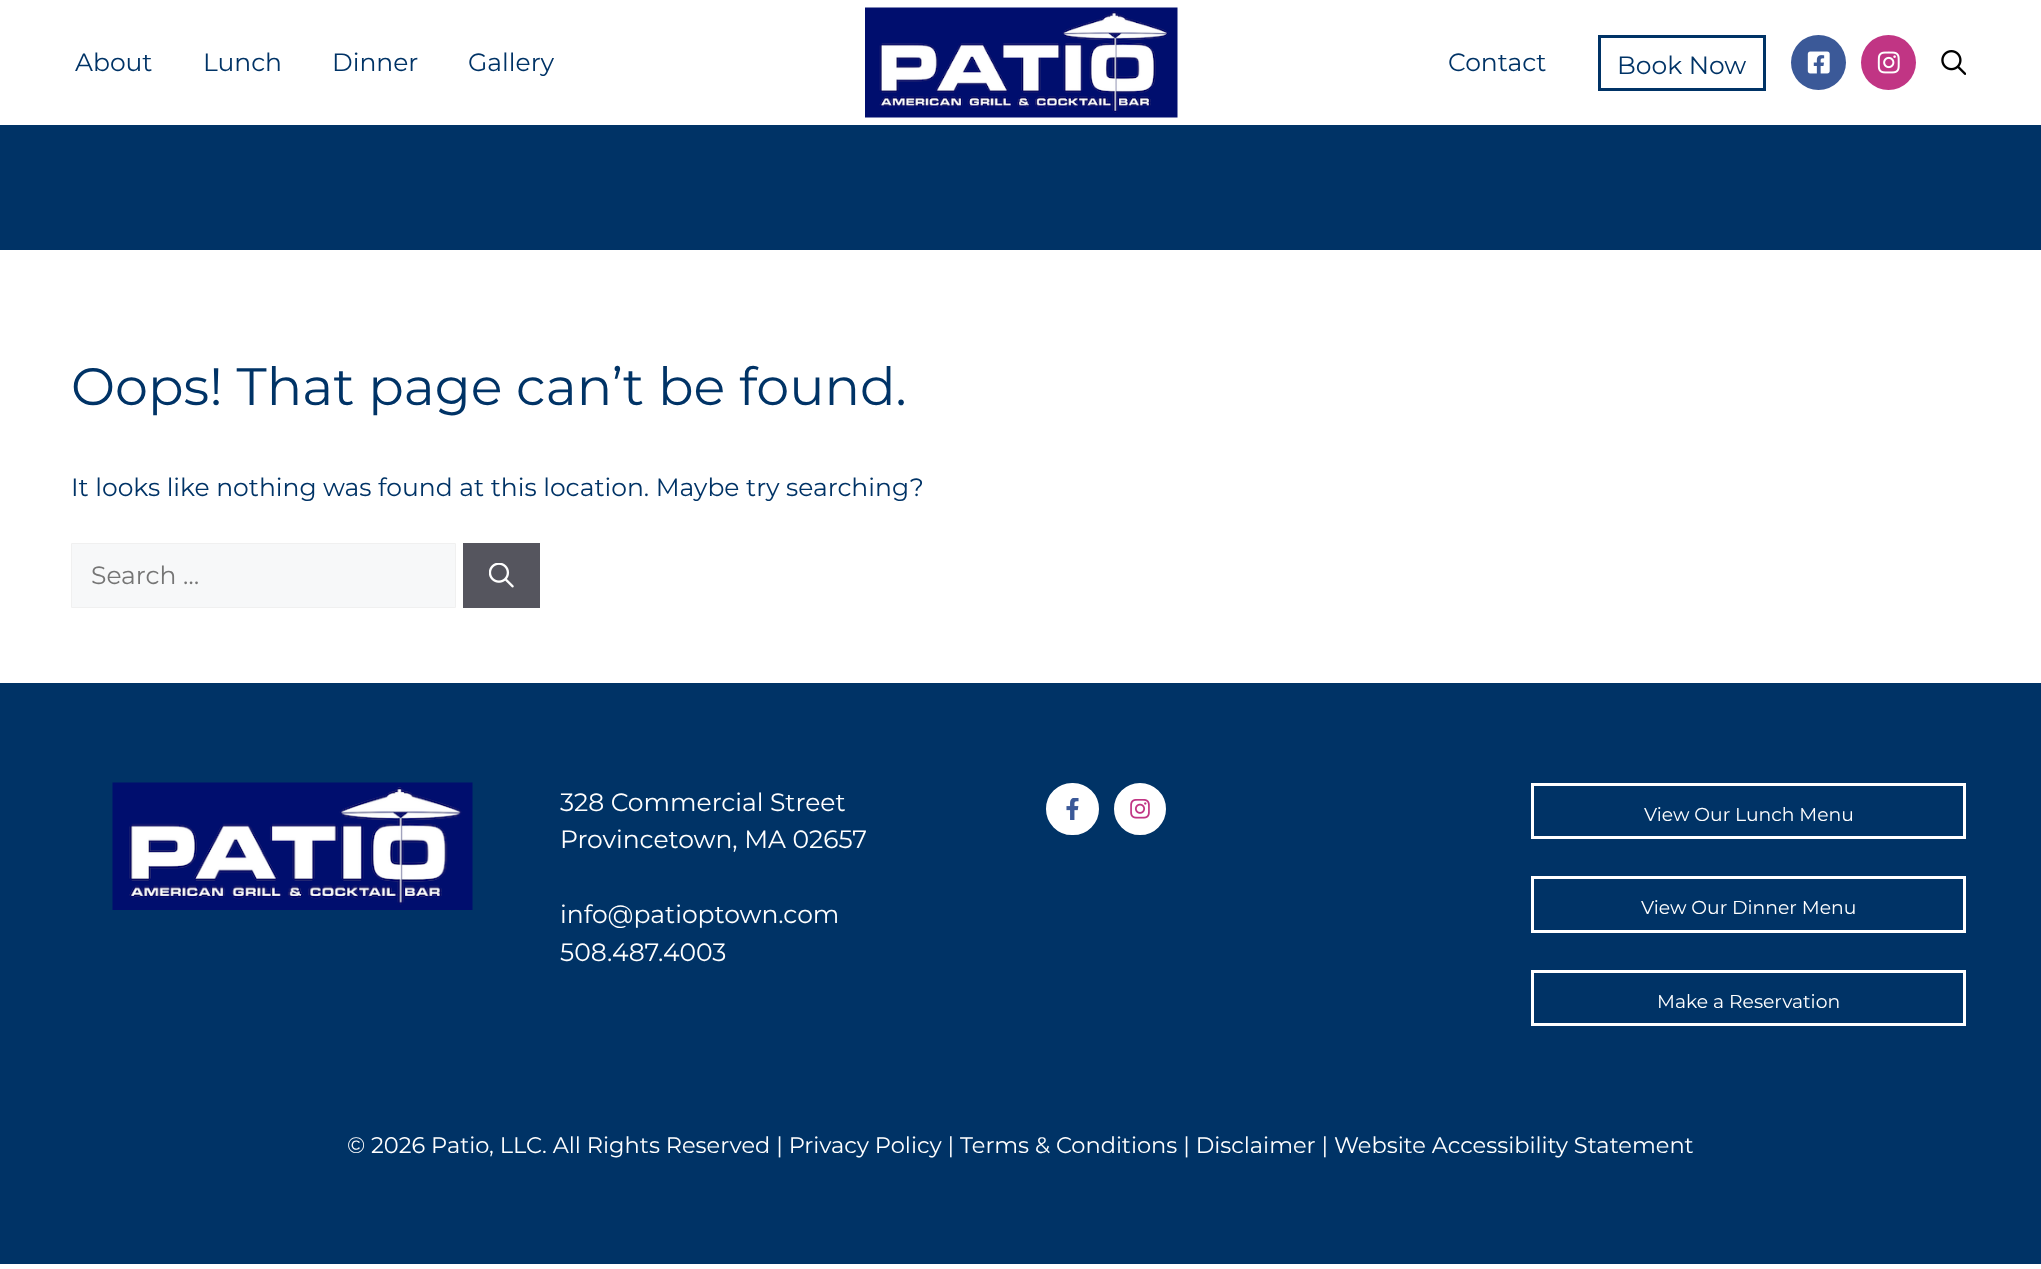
(async () => {
const canvas = document.querySelector("canvas")
canvas.width = 2041
canvas.height = 1269
const c = canvas.getContext("2d")
c.miterLimit = 4
c.fontKerning = "normal"
function T(s,x,y){c.fillText(s,x,y)}
function R(x,y,w,h){c.fillRect(x,y,w,h)}
async function I(src,x,y,w,h){const img=new Image();img.src=src;await img.decode();c.drawImage(img,x,y,w,h)}
c.fillStyle="#fff"
R(0,0,2041,1269)
await I("1.png",865,7,313,111)
c.font="25px Montserrat"
c.fillStyle="#036"
T("About",75,71)
T("Lunch",203,71)
T("Dinner",332,71)
T("Gallery",468,71)
T("Contact",1448,71)
c.strokeStyle="#036"
c.lineWidth=3
c.strokeRect(1599.5,36.5,165,53)
T("Book Now",1617,74)
c.fillStyle="#3b5998"
c.beginPath()
c.arc(1818.5,62.5,27.5,0,7)
c.fill()
await I("2.png",1807,51,23,23)
c.fillStyle="#c13584"
c.beginPath()
c.arc(1888.5,62.5,27.5,0,7)
c.fill()
await I("3.png",1877,51,23,23)
await I("4.png",1941,50,25,25)
c.fillStyle="#036"
R(0,125,2041,125)
c.font="52.5px Montserrat"
T("Oops! That page can’t be found.",71,405)
c.font="25px Montserrat"
T("It looks like nothing was found at this location. Maybe try searching?",71,496)
c.fillStyle="#f7f8f9"
c.beginPath()
c.rect(71.5,543.5,384,64)
c.fill()
c.strokeStyle="#f0f0f0"
c.lineWidth=1
c.stroke()
c.fillStyle="#757575"
T("Search …",91,584)
c.fillStyle="#55555e"
R(463,543,77,65)
await I("5.png",489,563,25,25)
c.fillStyle="#036"
R(0,683,2041,581)
await I("6.png",112,782,361,128)
c.fillStyle="#fff"
T("328 Commercial Street",560,811)
T("Provincetown, MA 02657",560,848)
T("info@patioptown.com",560,923)
T("508.487.4003",560,961)
c.beginPath()
c.roundRect(1047.5,784.5,50,49,24.5)
c.fill()
c.strokeStyle="#fff"
c.lineWidth=3
c.stroke()
await I("7.png",1066,798,13,22)
c.beginPath()
c.arc(1140,809,24.5,0,7)
c.fill()
c.stroke()
await I("8.png",1130,799,20,20)
c.strokeRect(1532.5,784.5,432,53)
c.font="18.75px Montserrat"
T("View Our Lunch Menu",1644,821)
c.strokeRect(1532.5,877.5,432,54)
T("View Our Dinner Menu",1641,914)
c.strokeRect(1532.5,971.5,432,53)
T("Make a Reservation",1657,1008)
c.font="22.5px Montserrat"
T("© 2026 Patio, LLC",347,1153)
T(". All Rights Reserved | Privacy Policy | Terms & Conditions | Disclaimer | Website Accessibility Statement",542,1153)
})()
